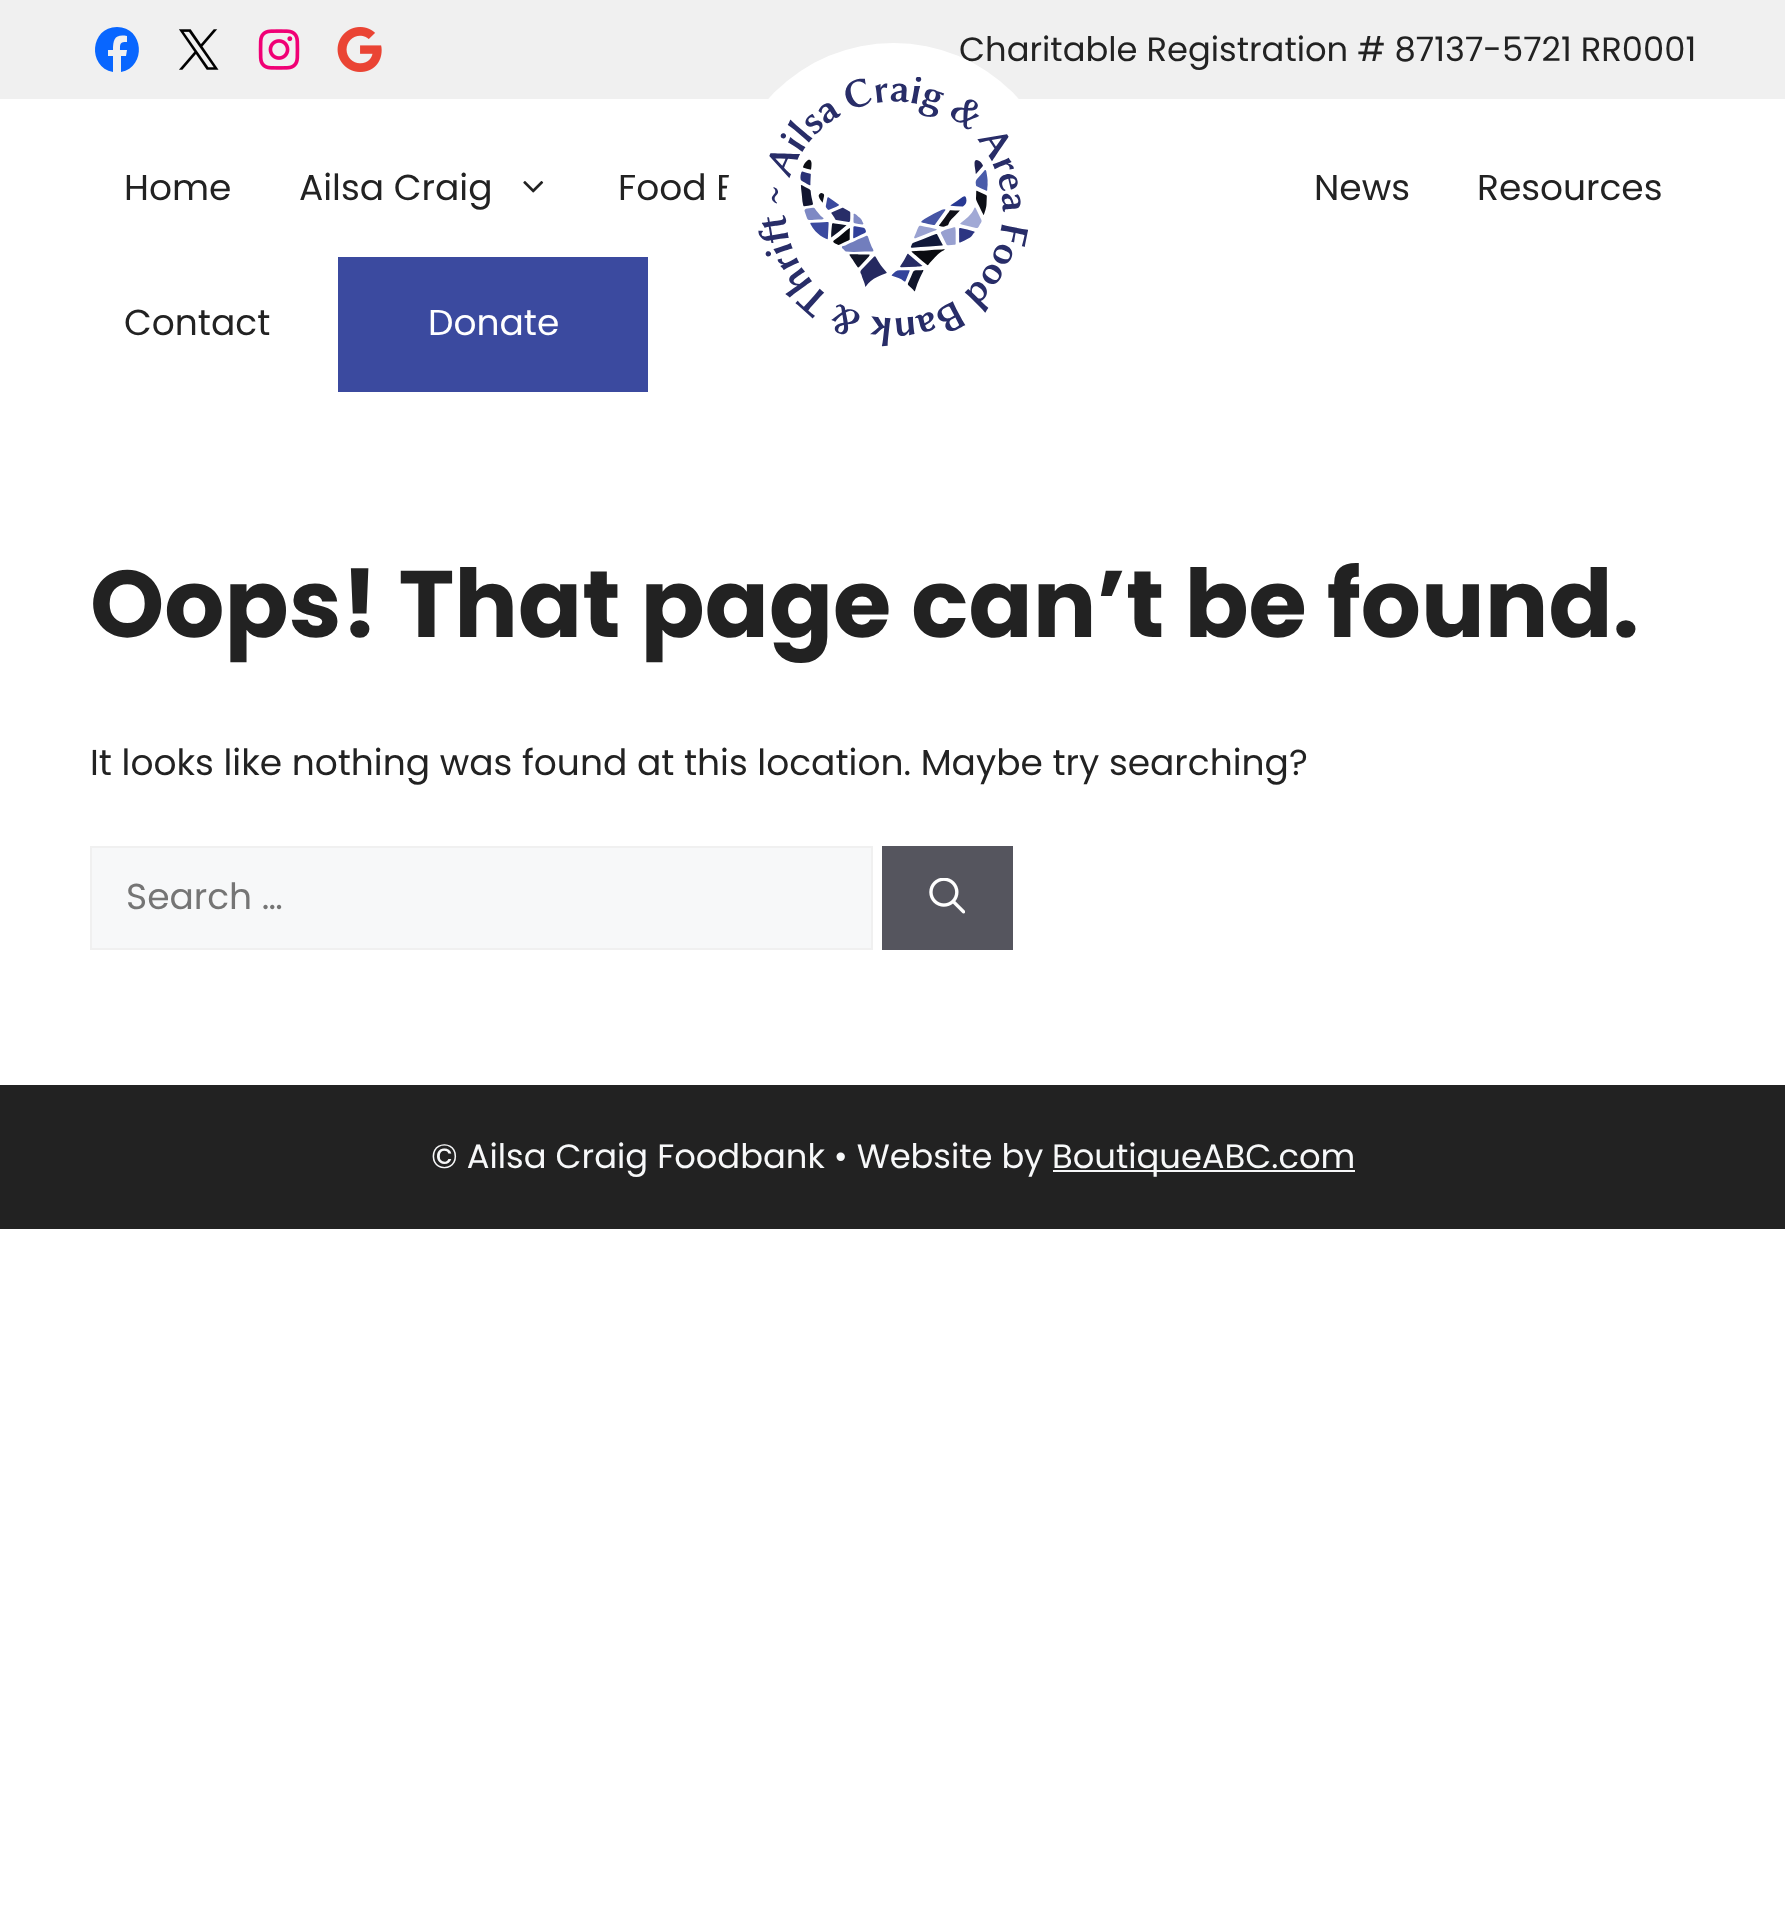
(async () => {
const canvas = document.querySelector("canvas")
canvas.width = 1785
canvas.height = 1924
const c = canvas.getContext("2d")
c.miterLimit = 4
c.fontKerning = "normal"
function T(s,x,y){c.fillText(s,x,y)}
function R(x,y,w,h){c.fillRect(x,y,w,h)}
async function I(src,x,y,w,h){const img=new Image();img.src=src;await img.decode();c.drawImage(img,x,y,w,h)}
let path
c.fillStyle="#fff"
R(0,0,1785,1924)
c.fillStyle="#f0f0f0"
R(0,0,1785,99)
c.fillStyle="#0866ff"
path = new Path2D("M117 27c-27 0-30 40-4 45v-16h-5v-6h5c0-11 2-16 14-14v6c-7 0-7 1-7 8h7l-1 6h-5v16c26-5 23-45-4-45z")
c.fill(path)
await I("1.png",179,29,40,41)
await I("2.png",258,29,42,41)
await I("3.png",337,27,45,45)
c.font="33.75px Poppins"
c.fillStyle="#222"
T("Charitable Registration # 87137-5721 RR0001",959,61)
c.font="36px Poppins"
T("Food B",618,200)
c.fillStyle="#fff"
c.beginPath()
c.arc(893.5,211.5,168.5,0,7)
c.fill()
await I("4.png",758,77,270,270)
c.fillStyle="#222"
T("Home",124,200)
T("Ailsa Craig",299,200)
await I("5.png",523,181,21,12)
T("News",1314,200)
T("Resources",1477,200)
T("Contact",124,335)
c.fillStyle="#3b4a9f"
R(338,257,310,135)
c.fillStyle="#fff"
T("Donate",428,335)
c.font="bold 94.5px Poppins"
c.fillStyle="#222"
T("Oops! That page can’t be found.",90,637)
c.font="36px Poppins"
T("It looks like nothing was found at this location. Maybe try searching?",90,775)
c.fillStyle="#f7f8f9"
c.beginPath()
c.rect(91,847,781,102)
c.fill()
c.strokeStyle="#f0f0f0"
c.lineWidth=2
c.stroke()
c.fillStyle="#757575"
T("Search …",126,909)
c.fillStyle="#55555e"
R(882,846,131,104)
await I("6.png",929,878,36,36)
c.fillStyle="#222"
R(0,1085,1785,144)
c.font="33.75px Poppins"
c.fillStyle="#f7f8f9"
T("© Ailsa Craig Foodbank • Website by",431,1168)
R(1053,1170,302,2)
T("BoutiqueABC.com",1052,1168)
})()
